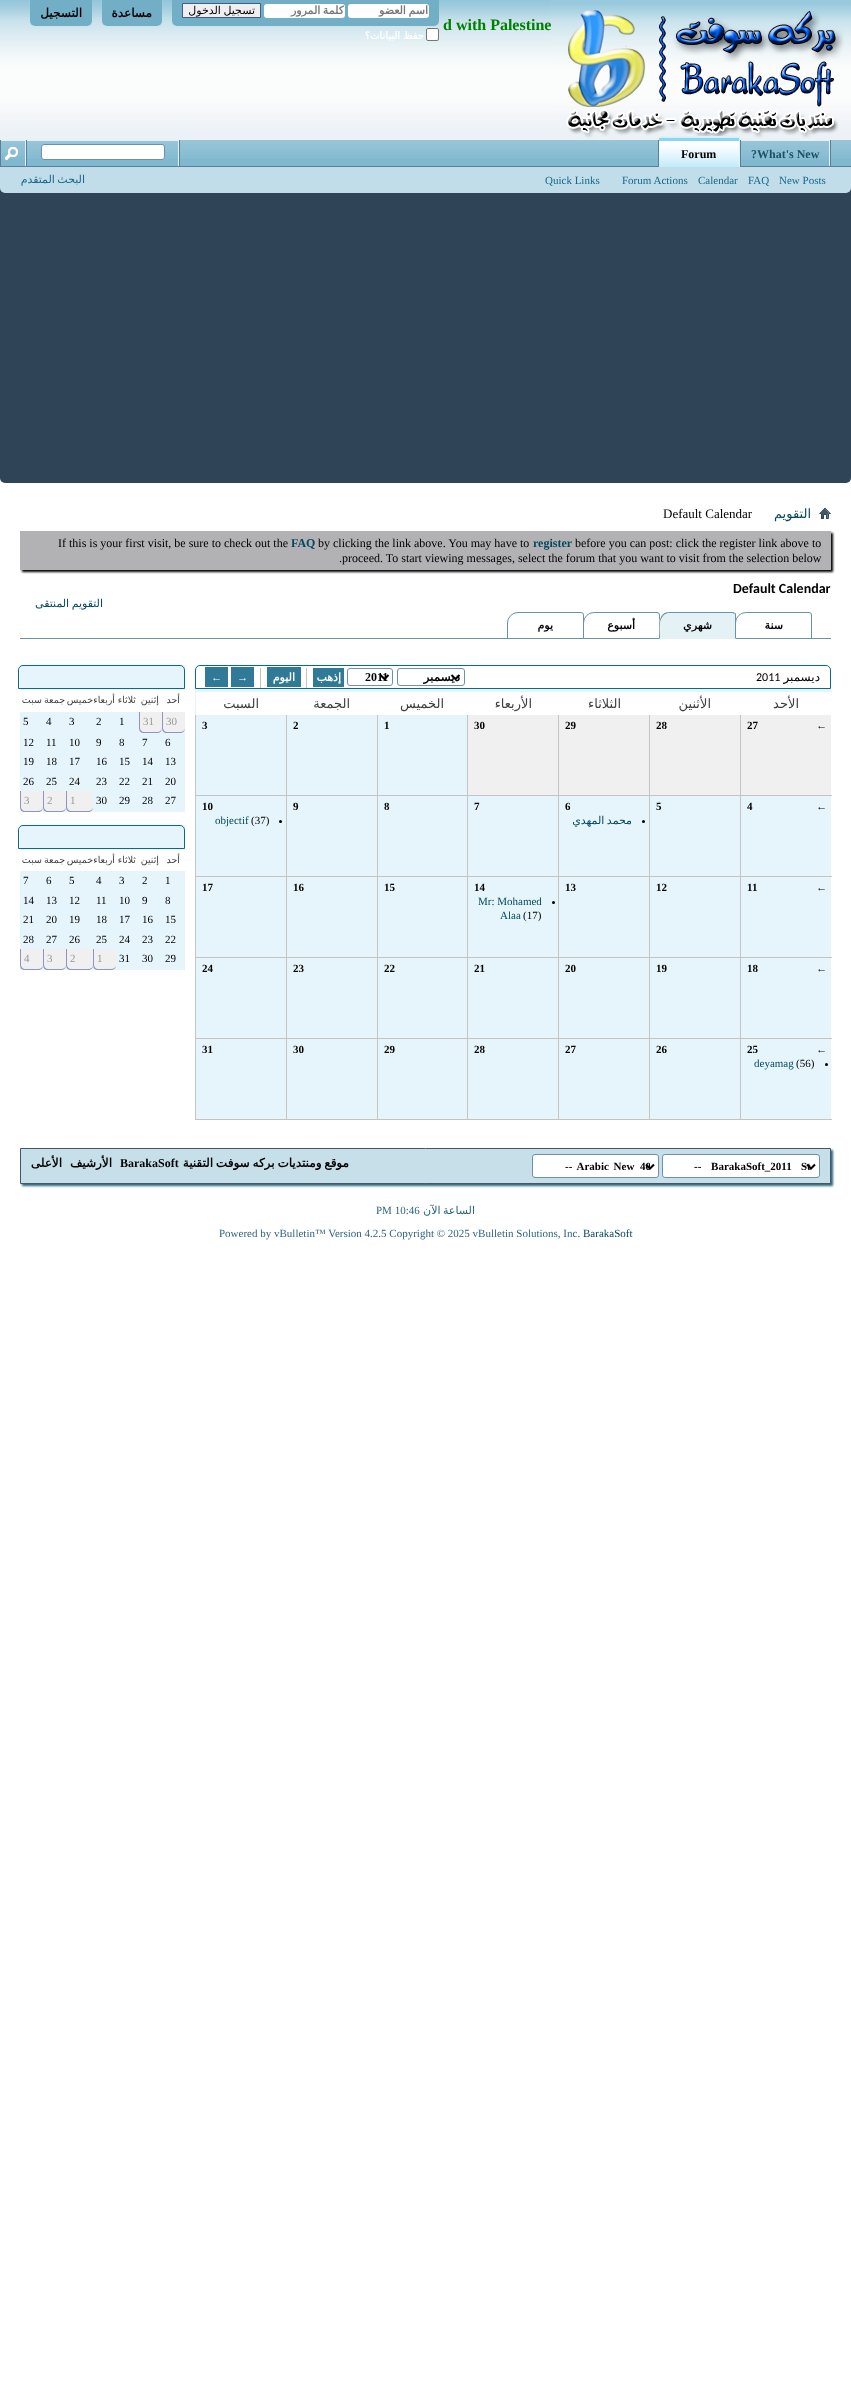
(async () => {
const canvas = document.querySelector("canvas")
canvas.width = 851
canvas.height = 2406
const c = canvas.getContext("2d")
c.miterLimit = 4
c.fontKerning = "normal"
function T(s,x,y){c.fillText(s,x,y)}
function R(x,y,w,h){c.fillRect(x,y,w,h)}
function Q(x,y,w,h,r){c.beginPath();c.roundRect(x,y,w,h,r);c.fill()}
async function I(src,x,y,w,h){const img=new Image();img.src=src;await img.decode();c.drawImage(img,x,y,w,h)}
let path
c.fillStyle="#fff"
R(0,0,851,2406)
c.fillStyle="#2f4456"
c.beginPath()
c.roundRect(0,0,851,483,[0,0,5,5])
c.fill()
await I("1.png",0,0,851,140)
c.fillStyle="#73aec7"
c.beginPath()
c.roundRect(30,0,62,26,[0,0,5,5])
c.fill()
c.direction="rtl"
c.font="bold 12px DejaVu Sans"
c.fillStyle="#000"
T("التسجيل",82,17)
c.fillStyle="#73aec7"
c.beginPath()
c.roundRect(102,0,60,26,[0,0,5,5])
c.fill()
c.fillStyle="#000"
T("مساعدة",152,17)
c.fillStyle="#73aec7"
c.beginPath()
c.roundRect(172,0,267,26,[0,0,5,5])
c.fill()
c.fillStyle="#efefef"
c.beginPath()
c.rect(182.5,3.5,78,14)
c.fill()
c.strokeStyle="#415d8d"
c.stroke()
c.wordSpacing="-1px"
c.font="11px DejaVu Sans"
c.fillStyle="#000"
T("تسجيل الدخول",255,14)
c.fillStyle="#fff"
Q(264,4,81,14,3)
c.save()
c.beginPath()
c.rect(265,4,79,13)
c.clip()
c.font="bold 11px DejaVu Sans"
c.fillStyle="#777"
T("كلمة المرور",344,14)
c.restore()
Q(348,4,81,14,3)
c.save()
c.beginPath()
c.rect(349,4,79,13)
c.clip()
c.font="bold 11px DejaVu Sans"
c.fillStyle="#777"
T("اسم العضو",428,14)
c.restore()
c.wordSpacing="0px"
c.font="bold 10px DejaVu Sans"
T("حفظ البيانات؟",424,39)
c.beginPath()
c.roundRect(426.5,28.5,12,12,1.5)
c.fill()
c.strokeStyle="#767676"
c.stroke()
c.direction="ltr"
c.font="bold 16px Liberation Serif"
c.fillStyle="#008000"
T("d with Palestine",443,30)
await I("2.png",551,0,300,139)
c.fillStyle="#c0dde9"
c.beginPath()
c.roundRect(0,140,851,53,[0,0,5,5])
c.fill()
c.fillStyle="#80b8cf"
R(1,140,850,26)
await I("4.png",1,140,850,19)
c.fillStyle="#5a7f97"
R(26,140,1,26)
R(0,140,1,26)
c.fillStyle="#dff1f9"
R(1,140,25,1)
R(25,140,1,26)
await I("3.png",5,147,13,14)
c.fillStyle="#5a7f97"
R(179,140,1,26)
c.fillStyle="#dff1f9"
R(27,140,152,1)
R(178,140,1,26)
c.fillStyle="#fff"
c.beginPath()
c.roundRect(41.5,144.5,123,15,2.5)
c.fill()
c.strokeStyle="#6b91ab"
c.stroke()
c.wordSpacing="-1px"
c.direction="rtl"
c.font="11px DejaVu Sans"
c.fillStyle="#166788"
T("البحث المتقدم",85,183)
c.fillStyle="#5a7f97"
R(658,140,1,26)
R(830,140,1,27)
R(740,140,1,27)
c.fillStyle="#dff1f9"
R(741,140,89,1)
R(829,140,1,27)
c.fillStyle="#5a7f97"
R(0,166,851,1)
c.fillStyle="#89d7f6"
R(659,137,80,30)
await I("5.png",659,137,80,30)
c.fillStyle="#dff1f9"
R(659,136,81,1)
R(739,136,1,31)
c.wordSpacing="0px"
c.direction="ltr"
c.font="bold 12px Liberation Serif"
c.fillStyle="#000"
T("Forum",681,158)
c.fillStyle="#80b8cf"
R(741,141,88,18)
await I("6.png",741,141,88,19)
c.fillStyle="#1c4f63"
T("?What's New",751,158)
c.font="11px Liberation Serif"
c.fillStyle="#166788"
T("Quick Links",545,184)
T("Forum Actions",622,184)
T("Calendar",698,184)
T("FAQ",748,184)
T("New Posts",779,184)
c.font="13px Liberation Serif"
c.fillStyle="#000"
T("Default Calendar",663,518)
c.direction="rtl"
c.font="13px DejaVu Sans"
c.fillStyle="#03485d"
T("التقويم",811,518)
await I("7.png",819,508,12,11)
c.fillStyle="#000"
c.filter="blur(1px)"
c.beginPath()
c.rect(22,533,811,39)
c.fill()
c.filter="none"
c.fillStyle="#b2b1b3"
R(20,531,811,39)
c.direction="ltr"
c.font="12px Liberation Serif"
c.fillStyle="#000"
T("If this is your first visit, be sure to check out the",58,547)
c.font="bold 12px Liberation Serif"
c.fillStyle="#03485d"
T("FAQ",291,547)
c.font="12px Liberation Serif"
c.fillStyle="#000"
T("by clicking the link above. You may have to",318,547)
c.font="bold 12px Liberation Serif"
c.fillStyle="#03485d"
T("register",533,547)
c.font="12px Liberation Serif"
c.fillStyle="#000"
T("before you can post: click the register link above to",575,547)
T(".proceed. To start viewing messages, select the forum that you want to visit from the selection below",339,562)
c.font="bold 14px Carlito"
T("Default Calendar",733,593)
c.wordSpacing="-1px"
c.direction="rtl"
c.font="11px DejaVu Sans"
c.fillStyle="#03485d"
T("التقويم المنتقى",103,607)
c.fillStyle="#6b91ab"
R(20,638,811,1)
c.fillStyle="#fff"
c.beginPath()
c.roundRect(583.5,612.5,76,26,[10.5,2.5,0,0])
c.fill()
c.stroke()
c.beginPath()
c.roundRect(507.5,612.5,76,26,[10.5,2.5,0,0])
c.fill()
c.stroke()
c.wordSpacing="0px"
c.font="bold 11px DejaVu Sans"
c.fillStyle="#000"
T("يوم",553,629)
T("أسبوع",635,629)
c.fillStyle="#fff"
c.beginPath()
c.roundRect(735.5,612.5,76,26,[10.5,2.5,0,0])
c.fill()
c.stroke()
c.fillStyle="#e4f2f6"
c.beginPath()
c.roundRect(659,612,77,27,[11,3,0,0])
c.fill()
c.fillStyle="#6b91ab"
path = new Path2D("M670 612c-4 0-6 1-8 3l1 1c1-2 3-2 5-3h65l1 1l1-1l-2-1z")
c.fill(path)
path = new Path2D("M736 639v-24c0-1 0-2-1-2l-.5 .5c.5 .5 .5 1 .5 1.5v23z")
c.fill(path)
path = new Path2D("M659 639v-15c.5-3.5 1.5-6.5 3-9l1 1c-5 5.5-3 15-3 22z")
c.fill(path)
c.fillStyle="#000"
T("شهري",712,629)
T("سنة",783,629)
c.fillStyle="#e6f5fb"
R(20,665,165,147)
c.beginPath()
c.roundRect(18.5,665.5,166,23,[4.5,4.5,0,0])
c.strokeStyle="#046c93"
c.stroke()
c.fillStyle="#fff"
R(20,690,165,22)
c.font="9.5px DejaVu Sans"
c.fillStyle="#3e3e3e"
T("سبت",42,703)
T("جمعة",65,703)
T("خميس",93,703)
T("أربعاء",115,703)
T("ثلاثاء",136,703)
T("إثنين",159,703)
c.fillStyle="#e6f5fb"
R(185,689,1,1)
c.fillStyle="#3e3e3e"
T("أحد",180,703)
c.direction="ltr"
c.font="11px Liberation Serif"
c.fillStyle="#000"
T("5",23,725)
T("4",46,725)
T("3",69,725)
T("2",96,725)
T("1",119,725)
c.fillStyle="#f0f0f0"
c.beginPath()
c.roundRect(139,712,23,21,[0,0,5,5])
c.fill()
c.fillStyle="#8f95bf"
path = new Path2D("M139 712h23v16c0 3-2 5-5 5h-13c-3 0-5-2-5-5zm1 0h22v16c0 2-2 4-5 4h-13c-2 0-4-2-4-4z")
c.fill(path,"evenodd")
c.fillStyle="#999"
T("31",143,725)
c.fillStyle="#f0f0f0"
c.beginPath()
c.roundRect(162,712,23,21,[0,0,5,5])
c.fill()
c.fillStyle="#8f95bf"
path = new Path2D("M162 712h23v16c0 3-2 5-5 5h-13c-3 0-5-2-5-5zm1 0h22v16c0 2-2 4-5 4h-13c-2 0-4-2-4-4z")
c.fill(path,"evenodd")
c.fillStyle="#999"
T("30",166,725)
c.fillStyle="#000"
T("12",23,746)
T("11",46,746)
T("10",69,746)
T("9",96,746)
T("8",119,746)
T("7",142,746)
T("6",165,746)
T("19",23,765)
T("18",46,765)
T("17",69,765)
T("16",96,765)
T("15",119,765)
T("14",142,765)
T("13",165,765)
T("26",23,785)
T("25",46,785)
T("24",69,785)
T("23",96,785)
T("22",119,785)
T("21",142,785)
T("20",165,785)
c.fillStyle="#f0f0f0"
c.beginPath()
c.roundRect(20,791,23,21,[0,0,5,5])
c.fill()
c.fillStyle="#8f95bf"
path = new Path2D("M20 791h23v16c0 3-2 5-5 5h-13c-3 0-5-2-5-5zm1 0h22v16c0 2-2 4-5 4h-13c-2 0-4-2-4-4z")
c.fill(path,"evenodd")
c.fillStyle="#999"
T("3",24,804)
c.fillStyle="#f0f0f0"
c.beginPath()
c.roundRect(43,791,23,21,[0,0,5,5])
c.fill()
c.fillStyle="#8f95bf"
path = new Path2D("M43 791h23v16c0 3-2 5-5 5h-13c-3 0-5-2-5-5zm1 0h22v16c0 2-2 4-5 4h-13c-2 0-4-2-4-4z")
c.fill(path,"evenodd")
c.fillStyle="#999"
T("2",47,804)
c.fillStyle="#f0f0f0"
c.beginPath()
c.roundRect(66,791,27,21,[0,0,5,5])
c.fill()
c.fillStyle="#8f95bf"
path = new Path2D("M66 791h27v16c0 3-2 5-5 5h-17c-3 0-5-2-5-5zm1 0h26v16c0 2-2 4-5 4h-17c-2 0-4-2-4-4z")
c.fill(path,"evenodd")
c.fillStyle="#999"
T("1",70,804)
c.fillStyle="#000"
T("30",96,804)
T("29",119,804)
T("28",142,804)
T("27",165,804)
c.fillStyle="#e6f5fb"
R(20,825,165,145)
c.beginPath()
c.roundRect(18.5,825.5,166,23,[4.5,4.5,0,0])
c.stroke()
c.fillStyle="#fff"
R(20,850,165,21)
c.direction="rtl"
c.font="9.5px DejaVu Sans"
c.fillStyle="#3e3e3e"
T("سبت",42,863)
T("جمعة",65,863)
T("خميس",93,863)
T("أربعاء",115,863)
T("ثلاثاء",136,863)
T("إثنين",159,863)
c.fillStyle="#e6f5fb"
R(185,849,1,1)
c.fillStyle="#3e3e3e"
T("أحد",180,863)
c.direction="ltr"
c.font="11px Liberation Serif"
c.fillStyle="#000"
T("7",23,884)
T("6",46,884)
T("5",69,884)
T("4",96,884)
T("3",119,884)
T("2",142,884)
T("1",165,884)
T("14",23,904)
T("13",46,904)
T("12",69,904)
T("11",96,904)
T("10",119,904)
T("9",142,904)
T("8",165,904)
T("21",23,923)
T("20",46,923)
T("19",69,923)
T("18",96,923)
T("17",119,923)
T("16",142,923)
T("15",165,923)
T("28",23,943)
T("27",46,943)
T("26",69,943)
T("25",96,943)
T("24",119,943)
T("23",142,943)
T("22",165,943)
c.fillStyle="#f0f0f0"
c.beginPath()
c.roundRect(20,949,23,21,[0,0,5,5])
c.fill()
c.fillStyle="#8f95bf"
path = new Path2D("M20 949h23v16c0 3-2 5-5 5h-13c-3 0-5-2-5-5zm1 0h22v16c0 2-2 4-5 4h-13c-2 0-4-2-4-4z")
c.fill(path,"evenodd")
c.fillStyle="#999"
T("4",24,962)
c.fillStyle="#f0f0f0"
c.beginPath()
c.roundRect(43,949,23,21,[0,0,5,5])
c.fill()
c.fillStyle="#8f95bf"
path = new Path2D("M43 949h23v16c0 3-2 5-5 5h-13c-3 0-5-2-5-5zm1 0h22v16c0 2-2 4-5 4h-13c-2 0-4-2-4-4z")
c.fill(path,"evenodd")
c.fillStyle="#999"
T("3",47,962)
c.fillStyle="#f0f0f0"
c.beginPath()
c.roundRect(66,949,27,21,[0,0,5,5])
c.fill()
c.fillStyle="#8f95bf"
path = new Path2D("M66 949h27v16c0 3-2 5-5 5h-17c-3 0-5-2-5-5zm1 0h26v16c0 2-2 4-5 4h-17c-2 0-4-2-4-4z")
c.fill(path,"evenodd")
c.fillStyle="#999"
T("2",70,962)
c.fillStyle="#f0f0f0"
c.beginPath()
c.roundRect(93,949,23,21,[0,0,5,5])
c.fill()
c.fillStyle="#8f95bf"
path = new Path2D("M93 949h23v16c0 3-2 5-5 5h-13c-3 0-5-2-5-5zm1 0h22v16c0 2-2 4-5 4h-13c-2 0-4-2-4-4z")
c.fill(path,"evenodd")
c.fillStyle="#999"
T("1",97,962)
c.fillStyle="#000"
T("31",119,962)
T("30",142,962)
T("29",165,962)
c.beginPath()
c.roundRect(195.5,665.5,635,23,[4.5,4.5,0,0])
c.stroke()
c.fillStyle="#317a97"
R(205,667,23,20)
c.font="bold 11px Liberation Serif"
c.fillStyle="#fff"
T("←",211,681)
c.fillStyle="#317a97"
R(231,667,23,20)
c.fillStyle="#fff"
T("→",237,681)
c.fillStyle="#c5c2b8"
R(260,668,1,20)
c.fillStyle="#317a97"
R(267,667,34,20)
c.direction="rtl"
c.font="bold 11px DejaVu Sans"
c.fillStyle="#fff"
T("اليوم",295,681)
c.fillStyle="#c5c2b8"
R(306,668,1,20)
c.fillStyle="#317a97"
R(313,668,31,19)
c.fillStyle="#fff"
T("إذهب",341,681)
c.beginPath()
c.roundRect(347.5,668.5,45,17,2.5)
c.strokeStyle="#6b91ab"
c.stroke()
path = new Path2D("M380.5 675l4 4l4-4")
c.strokeStyle="#000"
c.lineWidth=2
c.stroke(path)
c.direction="ltr"
c.font="bold 12px Liberation Serif"
c.fillStyle="#000"
T("2011",365,681)
c.beginPath()
c.roundRect(397.5,668.5,67,17,2.5)
c.strokeStyle="#6b91ab"
c.lineWidth=1
c.stroke()
path = new Path2D("M451.5 675l4 4l4-4")
c.strokeStyle="#000"
c.lineWidth=2
c.stroke(path)
c.direction="rtl"
c.font="bold 12px DejaVu Sans"
T("ديسمبر",460,681)
c.direction="ltr"
c.font="12px Carlito"
T("2011",756,681)
c.direction="rtl"
c.font="12px DejaVu Sans"
T("ديسمبر",820,681)
c.fillStyle="#e6f5fb"
R(195,689,636,430)
c.fillStyle="#fff"
R(196,692,635,23)
c.font="13px DejaVu Sans"
c.fillStyle="#3e3e3e"
T("السبت",259,708)
T("الجمعة",350,708)
T("الخميس",444,708)
T("الأربعاء",532,708)
T("الثلاثاء",621,708)
T("الأثنين",711,708)
c.fillStyle="#e6f5fb"
R(831,691,1,1)
c.fillStyle="#3e3e3e"
T("الأحد",799,708)
c.fillStyle="#c4c4c4"
R(195,1119,637,1)
R(195,1038,1,82)
R(286,1038,1,82)
R(377,1038,1,82)
R(467,1038,1,82)
R(558,1038,1,82)
R(649,1038,1,82)
R(740,1038,1,82)
R(195,1038,637,1)
R(195,957,1,82)
R(286,957,1,82)
R(377,957,1,82)
R(467,957,1,82)
R(558,957,1,82)
R(649,957,1,82)
R(740,957,1,82)
R(195,957,637,1)
R(195,876,1,82)
R(286,876,1,82)
R(377,876,1,82)
R(467,876,1,82)
R(558,876,1,82)
R(649,876,1,82)
R(740,876,1,82)
R(195,876,637,1)
R(195,795,1,82)
R(286,795,1,82)
R(377,795,1,82)
R(467,795,1,82)
R(558,795,1,82)
R(649,795,1,82)
R(740,795,1,82)
R(195,795,637,1)
R(195,715,1,81)
c.direction="ltr"
c.font="bold 11px Liberation Serif"
c.fillStyle="#000"
T("3",202,729)
c.fillStyle="#c4c4c4"
R(286,715,1,81)
c.fillStyle="#000"
T("2",293,729)
c.fillStyle="#c4c4c4"
R(377,715,1,81)
c.fillStyle="#000"
T("1",384,729)
c.fillStyle="#f0f0f0"
R(468,715,90,80)
c.fillStyle="#c4c4c4"
R(467,715,1,81)
c.fillStyle="#000"
T("30",474,729)
c.fillStyle="#f0f0f0"
R(559,715,90,80)
c.fillStyle="#c4c4c4"
R(558,715,1,81)
c.fillStyle="#000"
T("29",565,729)
c.fillStyle="#f0f0f0"
R(650,715,90,80)
c.fillStyle="#c4c4c4"
R(649,715,1,81)
c.fillStyle="#000"
T("28",656,729)
c.fillStyle="#f0f0f0"
R(741,715,90,80)
c.fillStyle="#c4c4c4"
R(740,715,1,81)
c.fillStyle="#000"
T("27",747,729)
T("←",816,729)
T("10",202,810)
c.font="11px Liberation Serif"
c.fillStyle="#03485d"
T("objectif",215,824)
c.fillStyle="#000"
T("(37)",251,824)
c.beginPath()
c.arc(280.5,821.5,1.5,0,7)
c.fill()
c.font="bold 11px Liberation Serif"
T("9",293,810)
T("8",384,810)
T("7",474,810)
T("6",565,810)
c.wordSpacing="-1px"
c.direction="rtl"
c.font="11px DejaVu Sans"
c.fillStyle="#03485d"
T("محمد المهدي",632,824)
c.fillStyle="#000"
c.beginPath()
c.arc(643.5,821.5,1.5,0,7)
c.fill()
c.wordSpacing="0px"
c.direction="ltr"
c.font="bold 11px Liberation Serif"
T("5",656,810)
T("4",747,810)
T("←",816,810)
T("17",202,891)
T("16",293,891)
T("15",384,891)
T("14",474,891)
c.font="11px Liberation Serif"
c.fillStyle="#03485d"
T("Mr: Mohamed",478,905)
c.fillStyle="#000"
c.beginPath()
c.arc(553.5,902.5,1.5,0,7)
c.fill()
c.fillStyle="#03485d"
T("Alaa",500,919)
c.fillStyle="#000"
T("(17)",523,919)
c.font="bold 11px Liberation Serif"
T("13",565,891)
T("12",656,891)
T("11",747,891)
T("←",816,891)
T("24",202,972)
T("23",293,972)
T("22",384,972)
T("21",474,972)
T("20",565,972)
T("19",656,972)
T("18",747,972)
T("←",816,972)
T("31",202,1053)
T("30",293,1053)
T("29",384,1053)
T("28",474,1053)
T("27",565,1053)
T("26",656,1053)
T("25",747,1053)
T("←",816,1053)
c.font="11px Liberation Serif"
c.fillStyle="#03485d"
T("deyamag",754,1067)
c.fillStyle="#000"
T("(56)",796,1067)
c.beginPath()
c.arc(826.5,1064.5,1.5,0,7)
c.fill()
c.fillStyle="#2c657c"
c.filter="blur(1px)"
c.beginPath()
c.rect(22,1150,811,36)
c.fill()
c.filter="none"
c.fillStyle="#c7dfe9"
c.beginPath()
c.rect(20.5,1148.5,810,35)
c.fill()
c.strokeStyle="#425769"
c.lineWidth=1
c.stroke()
c.direction="rtl"
c.font="bold 12px DejaVu Sans"
c.fillStyle="#000"
T("الأعلى",62,1167)
T("الأرشيف",112,1167)
c.direction="ltr"
c.font="bold 12px Liberation Serif"
T("BarakaSoft",120,1167)
c.wordSpacing="-1px"
c.direction="rtl"
c.font="bold 12px DejaVu Sans"
T("موقع ومنتديات بركه سوفت التقنية",349,1167)
c.fillStyle="#fff"
c.beginPath()
c.roundRect(532.5,1154.5,126,23,2.5)
c.fill()
c.strokeStyle="#6b91ab"
c.stroke()
path = new Path2D("M646 1164.5l4 4l4-4")
c.strokeStyle="#000"
c.lineWidth=2
c.stroke(path)
c.wordSpacing="2px"
c.direction="ltr"
c.font="bold 11px Liberation Serif"
c.fillStyle="#000"
T("-- Arabic New",565,1170)
c.save()
c.beginPath()
c.rect(553,1159,97,14)
c.clip()
c.wordSpacing="0px"
T("40",640,1170)
c.restore()
c.fillStyle="#fff"
c.beginPath()
c.roundRect(662.5,1154.5,157,23,2.5)
c.fill()
c.strokeStyle="#6b91ab"
c.lineWidth=1
c.stroke()
path = new Path2D("M807 1164.5l4 4l4-4")
c.strokeStyle="#000"
c.lineWidth=2
c.stroke(path)
c.wordSpacing="7px"
c.fillStyle="#000"
T("-- BarakaSoft_2011",694,1170)
c.wordSpacing="0px"
T("St",801,1170)
c.font="11px Liberation Serif"
c.fillStyle="#2c657c"
T("PM 10:46",376,1214)
c.wordSpacing="-1px"
c.direction="rtl"
c.font="11px DejaVu Sans"
T("الساعة الآن",475,1214)
c.wordSpacing="0px"
c.direction="ltr"
c.font="11px Liberation Serif"
T("Powered by vBulletin™ Version 4.2.5 Copyright © 2025 vBulletin Solutions, Inc.",219,1237)
c.fillStyle="#03485d"
T("BarakaSoft",583,1237)
})()
